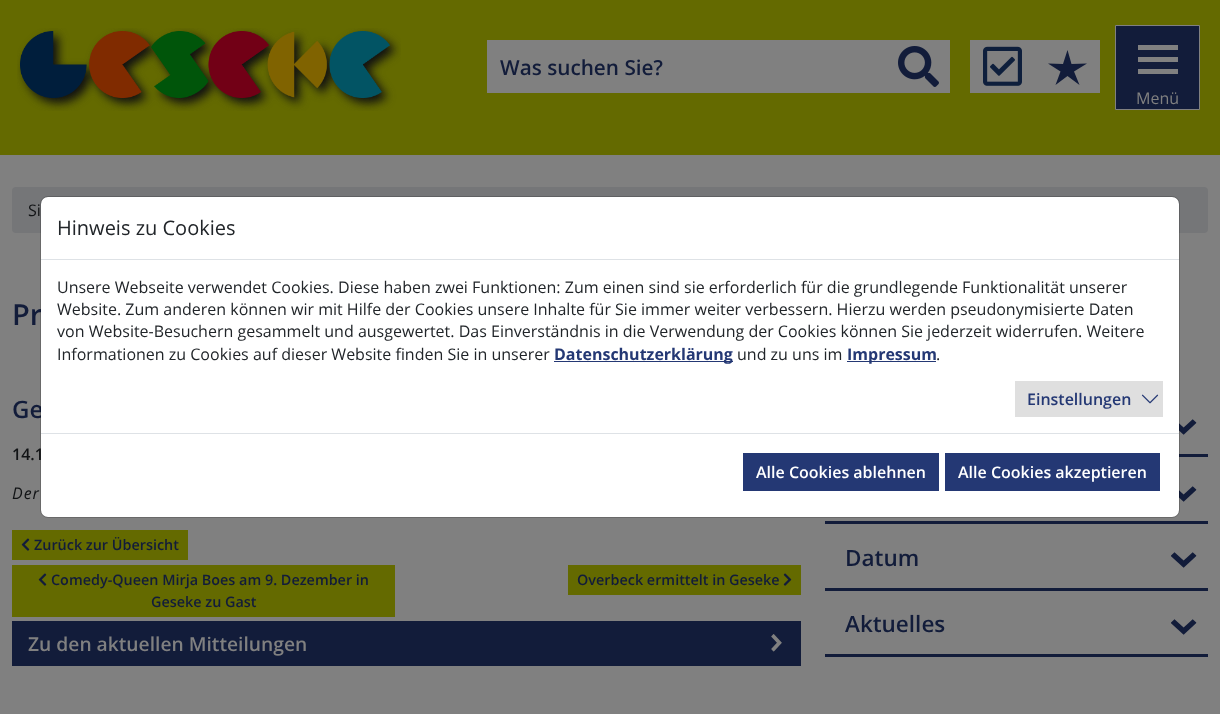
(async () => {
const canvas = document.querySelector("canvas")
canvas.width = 1220
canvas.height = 714
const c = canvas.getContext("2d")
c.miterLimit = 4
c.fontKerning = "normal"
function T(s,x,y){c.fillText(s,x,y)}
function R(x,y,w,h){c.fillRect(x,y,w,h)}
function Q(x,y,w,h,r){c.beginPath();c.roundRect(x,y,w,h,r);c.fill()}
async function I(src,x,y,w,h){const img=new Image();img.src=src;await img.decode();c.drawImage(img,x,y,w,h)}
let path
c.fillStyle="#808080"
R(0,0,1220,714)
c.fillStyle="#646a00"
R(0,0,1220,155)
await I("1.png",17,28,384,83)
c.fillStyle="#808080"
R(488,41,397,51)
c.strokeStyle="#808080"
c.strokeRect(487.5,40.5,399,52)
c.font="600 20.75px Open Sans"
c.fillStyle="#121c3a"
T("Was suchen Sie?",500,75)
c.fillStyle="#808080"
R(885,40,65,53)
await I("2.png",898,46,41,41)
R(970,40,130,53)
await I("3.png",983,46,39,40)
c.fillStyle="#121c3a"
path = new Path2D("M1067.5 50l-4.5 14l-15-.5l12.5 8l-5 13.5l12-9l12 9l-5.5-13.5l13-8l-15.5 .5z")
c.fill(path)
c.beginPath()
c.rect(1115.5,25.5,84,84)
c.fill()
c.stroke()
c.fillStyle="#808080"
R(1138,57,40,5)
R(1138,45,40,5)
R(1138,69,40,5)
c.font="16px Open Sans"
T("Menü",1136,104)
c.fillStyle="#757678"
Q(12,187,1196,46,4)
c.fillStyle="#111315"
T("Si",28,216)
c.font="600 29px Open Sans"
c.fillStyle="#121c3a"
T("Pr",12,325)
c.font="600 24px Open Sans"
T("Ge",12,418)
c.font="600 16px Open Sans"
c.fillStyle="#111315"
T("14.1",12,460)
c.letterSpacing="1px"
c.font="italic 16px Open Sans"
T("Der",12,499)
c.fillStyle="#646a00"
R(12,530,176,30)
await I("4.png",21,538,9,13)
c.letterSpacing="0px"
c.font="600 14.4px Open Sans"
c.fillStyle="#121c3a"
T("Zurück zur Übersicht",34,550)
c.fillStyle="#646a00"
R(12,565,383,52)
await I("4.png",38,573,9,13)
c.fillStyle="#121c3a"
T("Comedy-Queen Mirja Boes am 9. Dezember in",51,585)
T("Geseke zu Gast",151,607)
c.fillStyle="#646a00"
R(568,565,233,30)
c.fillStyle="#121c3a"
T("Overbeck ermittelt in Geseke",577,585)
await I("5.png",783,573,9,13)
R(12,621,789,45)
c.font="600 19.25px Open Sans"
c.fillStyle="#808080"
T("Zu den aktuellen Mitteilungen",28,651)
await I("6.png",771,634,11,18)
c.fillStyle="#121c3a"
R(1179,454,29,3)
await I("7.png",1179,419,18,16)
R(825,521,383,3)
await I("7.png",1179,486,18,16)
R(825,588,383,3)
c.font="600 22.5px Open Sans"
T("Datum",845,566)
await I("8.png",1171,552,26,16)
R(825,654,383,3)
T("Aktuelles",845,632)
await I("8.png",1171,619,26,16)
c.fillStyle="#fff"
Q(41,197,1138,320,7)
c.beginPath()
c.roundRect(40.5,196.5,1139,321,7.5)
c.strokeStyle="#0000002e"
c.stroke()
c.fillStyle="#dee2e6"
R(41,259,1138,1)
c.font="20px Open Sans"
c.fillStyle="#212529"
T("Hinweis zu Cookies",57,235)
c.font="16px Open Sans"
T("Unsere Webseite verwendet Cookies. Diese haben zwei Funktionen: Zum einen sind sie erforderlich für die grundlegende Funktionalität unserer",57,293)
T("Website. Zum anderen können wir mit Hilfe der Cookies unsere Inhalte für Sie immer weiter verbessern. Hierzu werden pseudonymisierte Daten",57,315)
T("von Website-Besuchern gesammelt und ausgewertet. Das Einverständnis in die Verwendung der Cookies können Sie jederzeit widerrufen. Weitere",57,337)
T("Informationen zu Cookies auf dieser Website finden Sie in unserer",57,360)
c.fillStyle="#243874"
R(554,361,179,1)
c.font="bold 16px Open Sans"
T("Datenschutzerklärung",554,360)
c.font="16px Open Sans"
c.fillStyle="#212529"
T("und zu uns im",737,360)
c.fillStyle="#243874"
R(847,361,89,1)
c.font="bold 16px Open Sans"
T("Impressum",847,360)
c.font="16px Open Sans"
c.fillStyle="#212529"
T(".",936,360)
c.fillStyle="#dfdfdf"
R(1015,381,148,36)
c.font="600 16px Open Sans"
c.fillStyle="#243874"
T("Einstellungen",1027,405)
await I("9.png",1141,394,18,10)
c.fillStyle="#dee2e6"
R(41,433,1138,1)
c.fillStyle="#243874"
R(743,453,196,38)
c.fillStyle="#fff"
T("Alle Cookies ablehnen",756,478)
c.fillStyle="#243874"
R(945,453,215,38)
c.fillStyle="#fff"
T("Alle Cookies akzeptieren",958,478)
})()
